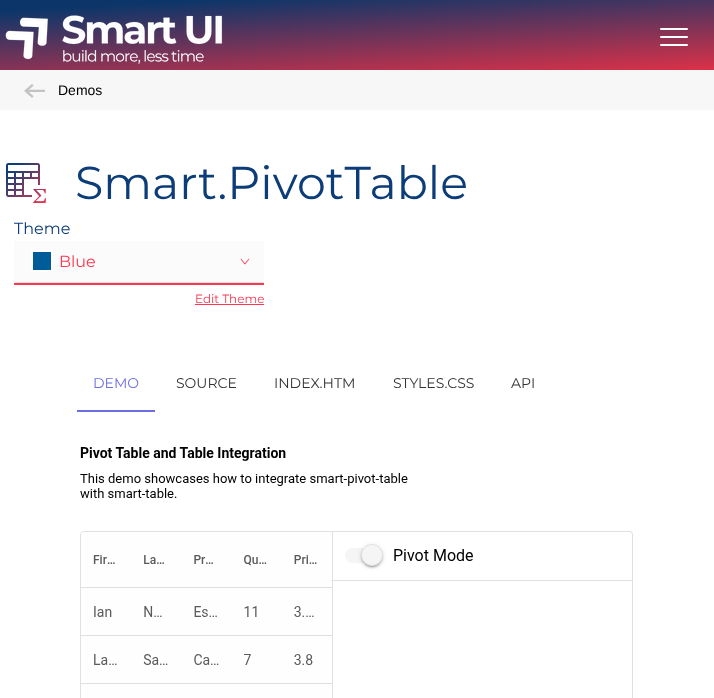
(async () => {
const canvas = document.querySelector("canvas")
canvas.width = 714
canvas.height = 698
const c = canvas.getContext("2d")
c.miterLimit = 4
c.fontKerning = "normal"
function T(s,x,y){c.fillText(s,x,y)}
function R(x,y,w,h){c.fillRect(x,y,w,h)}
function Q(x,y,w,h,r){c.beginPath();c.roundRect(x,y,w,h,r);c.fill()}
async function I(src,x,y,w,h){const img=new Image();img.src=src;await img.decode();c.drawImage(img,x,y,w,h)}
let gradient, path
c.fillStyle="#fff"
R(0,0,714,698)
gradient = c.createLinearGradient(354,-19,360,89)
gradient.addColorStop(.1,"#0c3669")
gradient.addColorStop(1,"#da3148")
c.fillStyle = gradient
R(0,0,714,70)
await I("1.png",5,15,218,49)
c.fillStyle="#fff"
Q(660,28,28,2,1)
Q(660,36,28,2,1)
Q(660,44,28,2,1)
c.fillStyle="#f7f7f7"
R(0,70,714,40)
await I("2.png",24,84,21,14)
c.font="14px Liberation Sans"
c.fillStyle="#000"
T("Demos",58,95)
await I("3.png",6,163,40,40)
c.font="46px Montserrat"
c.fillStyle="#0c3d78"
T("Smart.PivotTable",75,199)
c.font="16px Montserrat"
T("Theme",14,234)
c.fillStyle="#fc3752"
R(14,283,250,2)
c.fillStyle="#fbfbfc"
R(14,241,250,42)
c.fillStyle="#e2e2e3"
path = new Path2D("M264 283h-250l1-1h248z")
c.fill(path)
c.fillStyle="#005c99"
c.beginPath()
c.rect(32,251,20,20)
c.fill()
c.strokeStyle="#fff"
c.lineWidth=2
c.stroke()
c.fillStyle="#fc3752"
T("Blue",59,267)
await I("4.png",240,258,10,7)
c.font="12px Montserrat"
T("Edit Theme",195,303)
R(195,304,69,1)
c.font="14px Montserrat"
c.fillStyle="#6a6ee2"
T("DEMO",93,388)
c.fillStyle="#333"
T("SOURCE",176,388)
T("INDEX.HTM",274,388)
T("STYLES.CSS",393,388)
T("API",511,388)
c.fillStyle="#6a6ee2"
R(77,410,78,2)
await I("5.png",80,447,553,251)
})()
